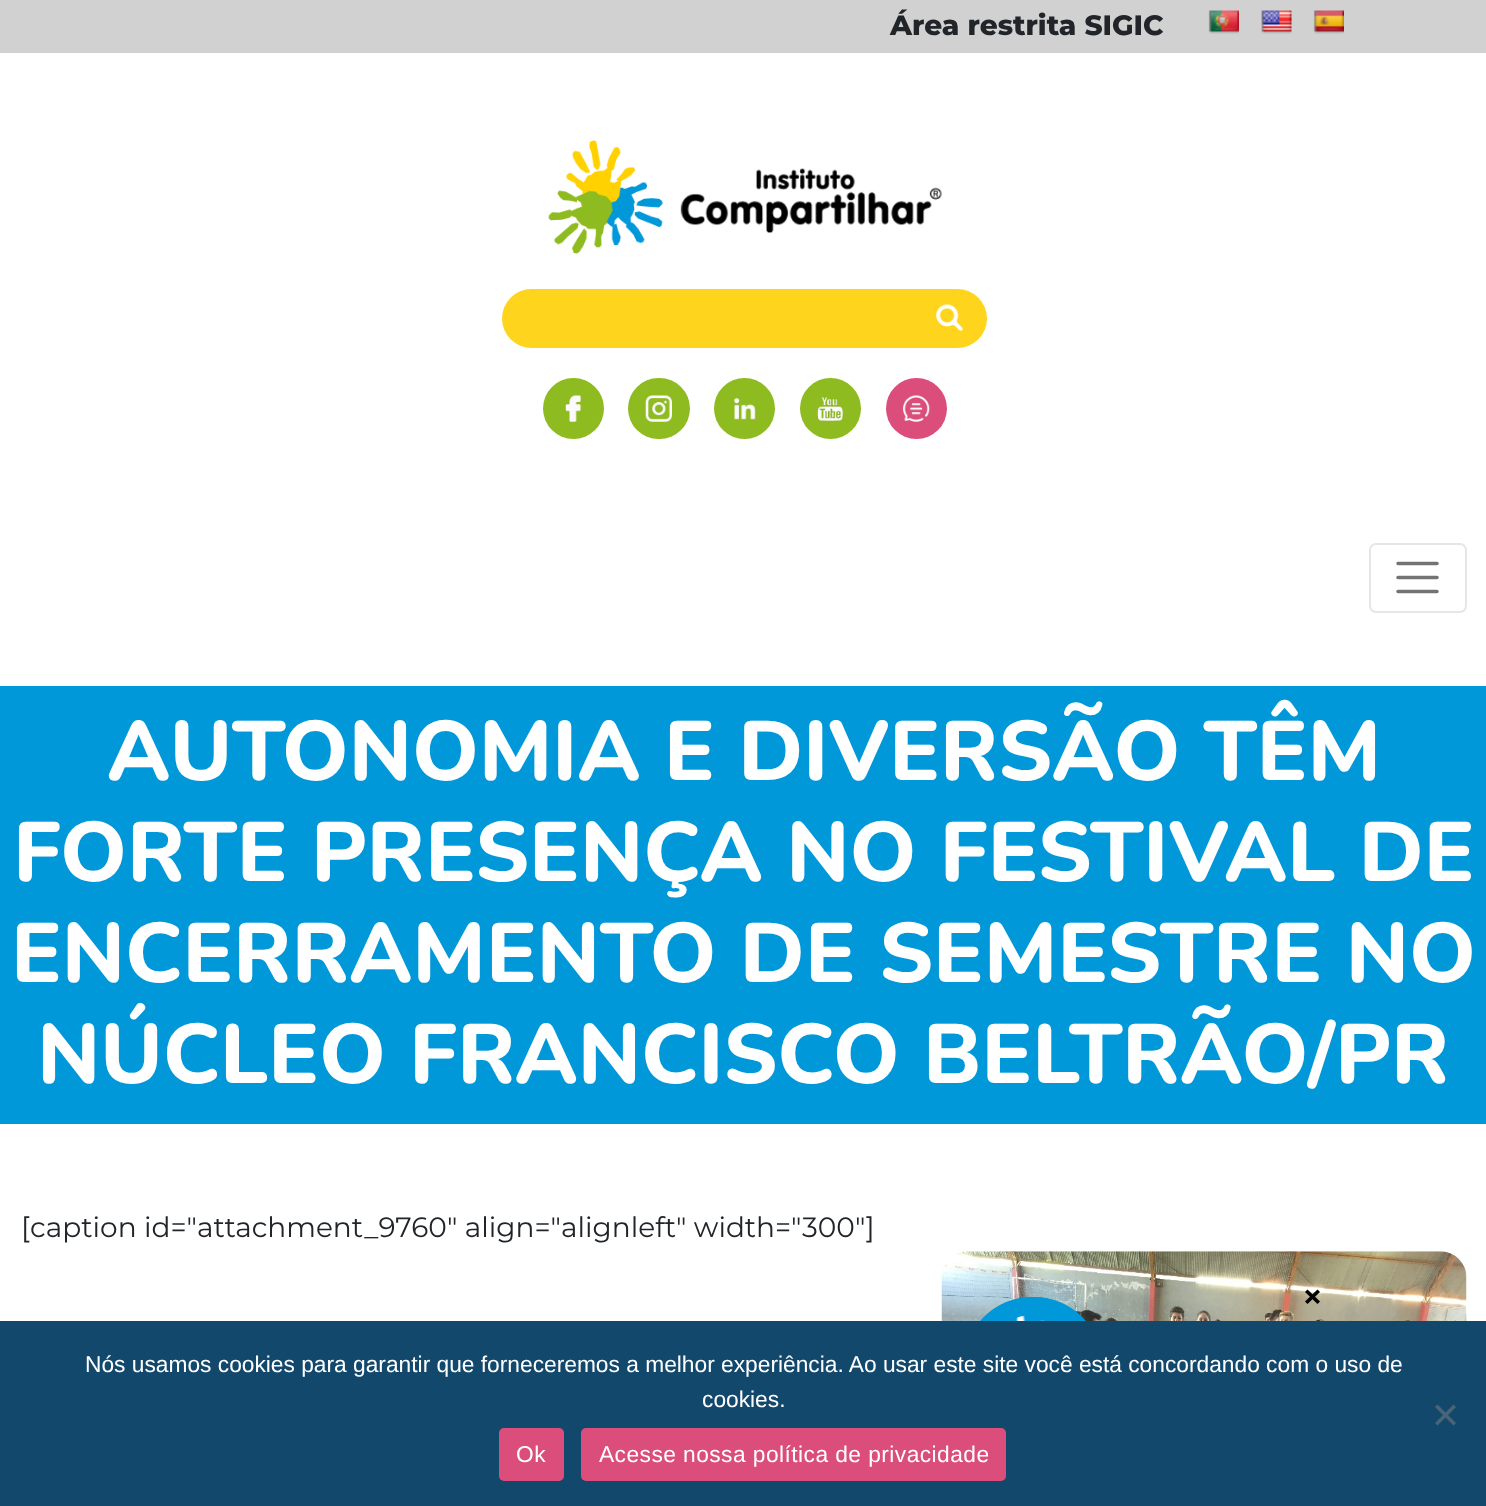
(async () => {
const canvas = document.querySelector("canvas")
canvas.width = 1486
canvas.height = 1506
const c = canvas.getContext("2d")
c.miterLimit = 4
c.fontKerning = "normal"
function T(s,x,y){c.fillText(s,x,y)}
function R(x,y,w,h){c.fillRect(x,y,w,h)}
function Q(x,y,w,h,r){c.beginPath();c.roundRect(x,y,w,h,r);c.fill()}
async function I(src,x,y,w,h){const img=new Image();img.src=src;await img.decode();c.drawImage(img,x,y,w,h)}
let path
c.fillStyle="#fff"
R(0,0,1486,1506)
c.fillStyle="#d1d1d1"
R(0,0,1486,53)
c.font="800 28px Montserrat"
c.fillStyle="#212529"
T("Área restrita SIGIC",890,35)
await I("1.png",1208,10,31,24)
await I("2.png",1261,10,31,24)
await I("3.png",1313,10,31,24)
await I("4.png",548,140,394,114)
c.fillStyle="#ffd41c"
Q(502,289,485,59,29.5)
await I("5.png",936,304,27,27)
c.fillStyle="#8ebb1f"
c.beginPath()
c.arc(573.5,408.5,30.5,0,7)
c.fill()
await I("6.png",565,395,17,27)
Q(628,378,62,61,30.5)
await I("7.png",645,395,27,27)
c.beginPath()
c.arc(744.5,408.5,30.5,0,7)
c.fill()
await I("8.png",734,398,22,22)
c.beginPath()
c.arc(830.5,408.5,30.5,0,7)
c.fill()
await I("9.png",817,397,26,24)
c.fillStyle="#db4d7a"
c.beginPath()
c.arc(916.5,408.5,30.5,0,7)
c.fill()
await I("10.png",903,395,27,27)
c.beginPath()
c.roundRect(1370,544,96,68,6)
c.strokeStyle="#e6e6e6"
c.lineWidth=2
c.stroke()
path = new Path2D("M1398 563.5h39m-39 14h39m-39 14h39")
c.strokeStyle="#737373"
c.lineWidth=3.5
c.lineCap="round"
c.stroke(path)
c.fillStyle="#0098d9"
R(0,686,1486,438)
c.font="800 84px Nunito"
c.fillStyle="#fff"
T("AUTONOMIA E DIVERSÃO TÊM",107,780)
T("FORTE PRESENÇA NO FESTIVAL DE",13,881)
T("ENCERRAMENTO DE SEMESTRE NO",11,982)
T("NÚCLEO FRANCISCO BELTRÃO/PR",37,1083)
c.font="28px Montserrat"
c.fillStyle="#212529"
T("[caption id=\"attachment_9760\" align=\"alignleft\" width=\"300\"]",21,1237)
await I("11.png",941,1251,526,70)
c.fillStyle="#0098d9"
c.beginPath()
c.arc(1033,1367,70,0,7)
c.fill()
await I("12.png",1015,1315,30,6)
c.beginPath()
c.arc(1033,1367,61,0,7)
c.strokeStyle="#0098d9"
c.lineWidth=18
c.stroke()
c.fillStyle="#000"
path = new Path2D("M1317.5 1289.5l2.5 2.5l-12.5 12l-2.5-2.5z")
c.fill(path)
path = new Path2D("M1305 1292l2.5-2.5l12.5 12l-2.5 2.5z")
c.fill(path)
c.fillStyle="#13486d"
R(0,1321,1486,185)
c.font="22.75px Liberation Sans"
c.fillStyle="#fff"
T("Nós usamos cookies para garantir que forneceremos a melhor experiência. Ao usar este site você está concordando com o uso de",85,1372)
T("cookies.",702,1407)
c.fillStyle="#4a6477"
path = new Path2D("M1453.5 1404.5l2.5 2.5l-18.5 18.5l-2.5-2.5z")
c.fill(path)
path = new Path2D("M1435 1407l2.5-2.5l18.5 18.5l-2.5 2.5z")
c.fill(path)
c.fillStyle="#db4d7b"
Q(499,1428,65,53,5)
c.letterSpacing="0.45px"
c.fillStyle="#fff"
T("Ok",516,1462)
c.fillStyle="#db4d7b"
Q(581,1428,425,53,5)
c.fillStyle="#fff"
T("Acesse nossa política de privacidade",599,1462)
})()
